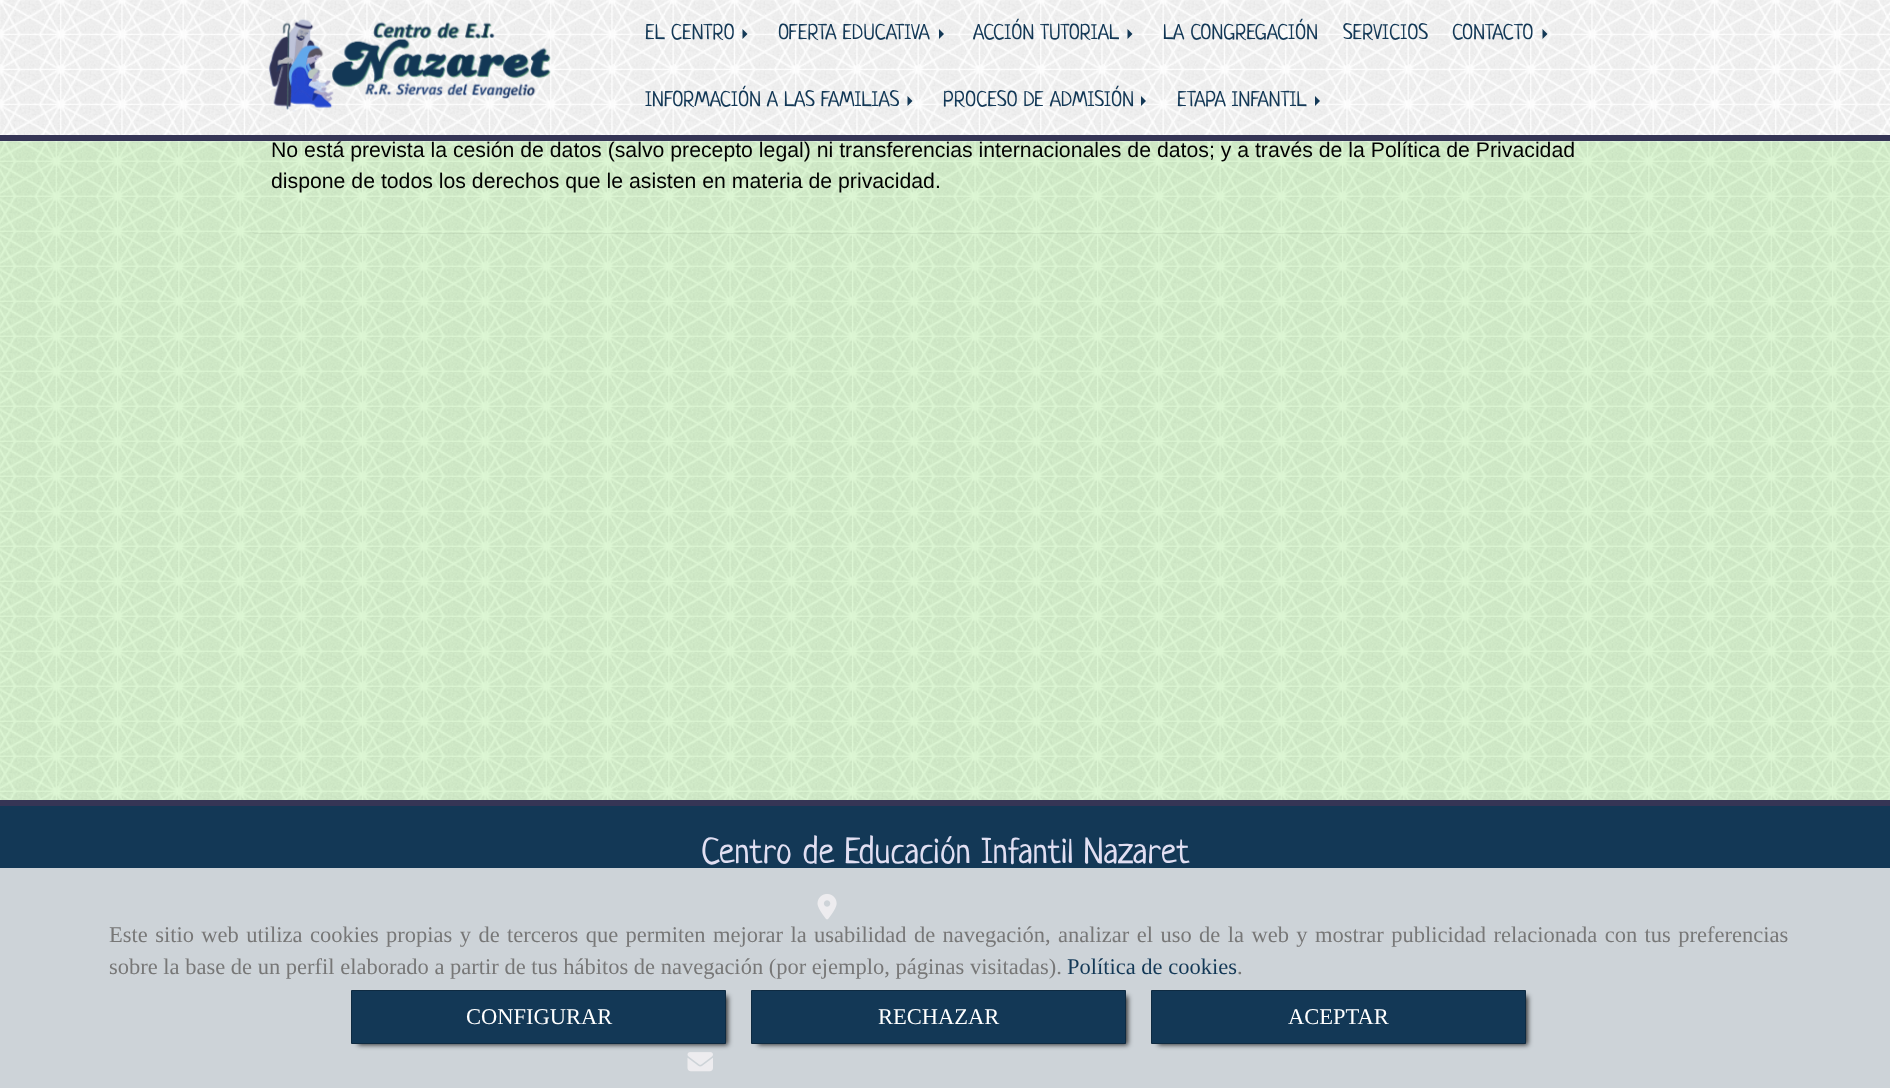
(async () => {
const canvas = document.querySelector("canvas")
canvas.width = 1890
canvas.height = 1088
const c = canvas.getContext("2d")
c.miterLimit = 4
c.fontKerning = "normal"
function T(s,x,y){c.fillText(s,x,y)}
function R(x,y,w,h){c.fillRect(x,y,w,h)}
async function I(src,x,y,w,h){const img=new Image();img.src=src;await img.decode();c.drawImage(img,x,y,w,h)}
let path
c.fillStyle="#fff"
R(0,0,1890,1088)
await I("1.png",0,141,1890,659)
c.save()
path = new Path2D("M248 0h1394v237h-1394zm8-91h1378c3 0 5 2 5 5v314c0 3-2 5-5 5h-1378c-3 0-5-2-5-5v-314c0-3 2-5 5-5z")
c.clip(path,"evenodd")
c.fillStyle="#0000000d"
c.filter="blur(0.5px)"
c.beginPath()
c.roundRect(251,-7,1388,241,5)
c.fill()
c.filter="none"
c.restore()
c.font="21.25px Liberation Sans"
c.fillStyle="#000"
T("No está prevista la cesión de datos (salvo precepto legal) ni transferencias internacionales de datos; y a través de la Política de Privacidad",271,157)
await I("2.png",0,0,1890,142)
c.fillStyle="#353555"
R(0,135,1890,6)
await I("3.png",268,17,283,95)
c.font="21.25px Neucha"
c.fillStyle="#133856"
T("EL CENTRO",645,39)
path = new Path2D("M742.5 39v-10l5 5z")
c.fill(path)
T("OFERTA EDUCATIVA",778,39)
path = new Path2D("M939 39v-10l5 5z")
c.fill(path)
T("ACCIÓN TUTORIAL",973,39)
path = new Path2D("M1127.5 39v-10l5 5z")
c.fill(path)
T("LA CONGREGACIÓN",1163,39)
T("SERVICIOS",1343,39)
T("CONTACTO",1452,39)
path = new Path2D("M1542.5 39v-10l5 5z")
c.fill(path)
T("INFORMACIÓN A LAS FAMILIAS",645,106)
path = new Path2D("M907.5 106v-10l5 5z")
c.fill(path)
T("PROCESO DE ADMISIÓN",943,106)
path = new Path2D("M1141 106v-10l5 5z")
c.fill(path)
T("ETAPA INFANTIL",1177,106)
path = new Path2D("M1315 106v-10l5 5z")
c.fill(path)
c.font="21.25px Liberation Sans"
c.fillStyle="#000"
T("dispone de todos los derechos que le asisten en materia de privacidad.",271,188)
c.fillStyle="#133856"
R(0,806,1890,282)
c.fillStyle="#353555"
R(0,800,1890,6)
c.font="36.25px Neucha"
c.fillStyle="#e1dff2"
T("Centro de Educación Infantil Nazaret",701,863)
await I("4.png",817,893,20,27)
await I("5.png",687,1052,26,20)
c.fillStyle="#eeeeeed9"
R(0,868,1890,220)
c.wordSpacing="1.8px"
c.font="22.5px Liberation Serif"
c.fillStyle="#777"
T("Este sitio web utiliza cookies propias y de terceros que permiten mejorar la usabilidad de navegación, analizar el uso de la web y mostrar publicidad relacionada con tus preferencias",109,942)
c.wordSpacing="0px"
T("sobre la base de un perfil elaborado a partir de tus hábitos de navegación (por ejemplo, páginas visitadas).",109,974)
c.fillStyle="#133856"
T("Política de cookies",1067,974)
c.fillStyle="#777"
T(".",1237,974)
c.fillStyle="#000000bf"
c.filter="blur(2.5px)"
c.beginPath()
c.rect(358,996,370,49)
c.fill()
c.filter="none"
c.fillStyle="#133856"
c.beginPath()
c.rect(351.5,990.5,374,53)
c.fill()
c.strokeStyle="#0e2a41"
c.stroke()
c.fillStyle="#fff"
T("CONFIGURAR",466,1024)
c.fillStyle="#000000bf"
c.filter="blur(2.5px)"
c.beginPath()
c.rect(758,996,370,49)
c.fill()
c.filter="none"
c.fillStyle="#133856"
c.beginPath()
c.rect(751.5,990.5,374,53)
c.fill()
c.stroke()
c.fillStyle="#fff"
T("RECHAZAR",878,1024)
c.fillStyle="#000000bf"
c.filter="blur(2.5px)"
c.beginPath()
c.rect(1158,996,370,49)
c.fill()
c.filter="none"
c.fillStyle="#133856"
c.beginPath()
c.rect(1151.5,990.5,374,53)
c.fill()
c.stroke()
c.fillStyle="#fff"
T("ACEPTAR",1288,1024)
})()
